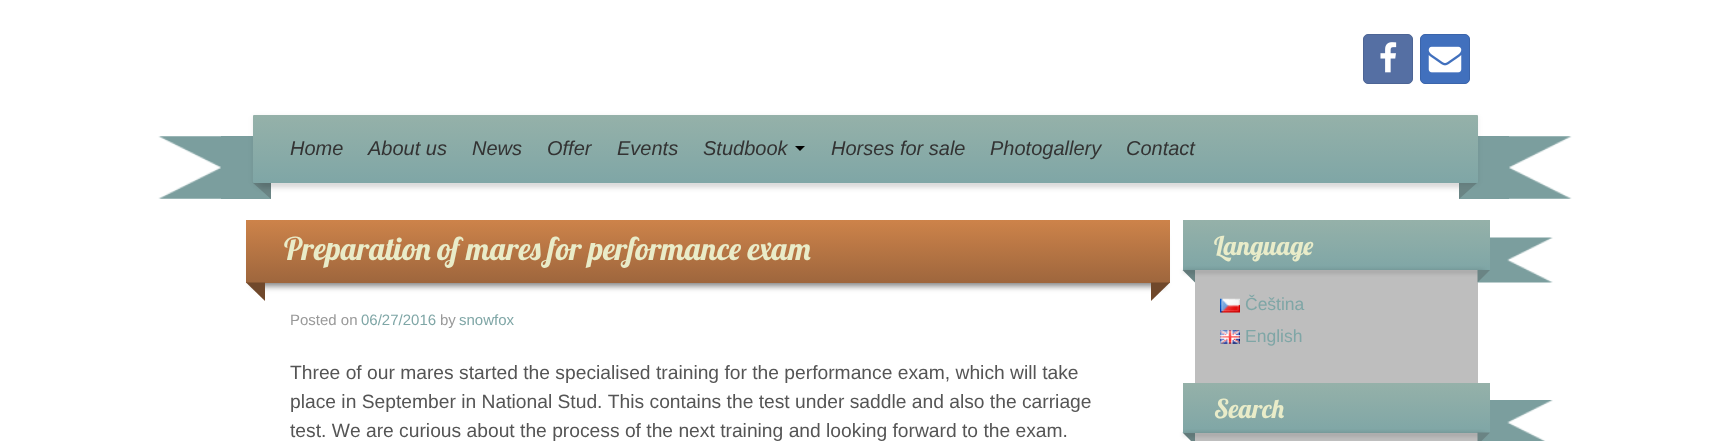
(async () => {
const canvas = document.querySelector("canvas")
canvas.width = 1730
canvas.height = 441
const c = canvas.getContext("2d")
c.miterLimit = 4
c.fontKerning = "none"
function T(s,x,y){c.fillText(s,x,y)}
function R(x,y,w,h){c.fillRect(x,y,w,h)}
function Q(x,y,w,h,r){c.beginPath();c.roundRect(x,y,w,h,r);c.fill()}
async function I(src,x,y,w,h){const img=new Image();img.src=src;await img.decode();c.drawImage(img,x,y,w,h)}
let gradient, path
c.fillStyle="#fff"
R(0,0,1730,441)
c.fillStyle="#556fa3"
c.beginPath()
c.roundRect(1363.5,34.5,49,49,4.5)
c.fill()
c.strokeStyle="#4d6595"
c.stroke()
await I("1.png",1380,42,17,31)
c.fillStyle="#4170bd"
c.beginPath()
c.roundRect(1420.5,34.5,49,49,4.5)
c.fill()
c.strokeStyle="#3b65ab"
c.stroke()
await I("2.png",1428,46,34,27)
await I("3.png",158,136,63,63)
c.fillStyle="#7b9e9e"
R(221,136,50,63)
R(1459,136,50,63)
c.fillStyle="#6a8484"
path = new Path2D("M252.5 182.5h18.5v16.5z")
c.fill(path)
c.fillStyle="#000000e6"
c.filter="blur(3px)"
c.beginPath()
c.rect(259,184,1206,1)
c.fill()
c.filter="none"
c.fillStyle="#6a8484"
path = new Path2D("M1459 199v-16.5h18.5z")
c.fill(path)
c.fillStyle="#00000012"
c.filter="blur(2.5px)"
c.beginPath()
c.roundRect(253,116,1225,68,1)
c.fill()
c.filter="none"
gradient = c.createLinearGradient(865,115,865,183)
gradient.addColorStop(0,"#95b1a9")
gradient.addColorStop(1,"#7fa6a6")
c.fillStyle = gradient
Q(253,115,1225,68,1)
c.font="italic 20px Liberation Sans"
c.fillStyle="#333"
T("Home",290,155)
T("About us",368,155)
T("News",472,155)
T("Offer",547,155)
T("Events",617,155)
T("Studbook",703,155)
c.fillStyle="#000"
path = new Path2D("M795 146h10l-5 5z")
c.fill(path)
c.fillStyle="#333"
T("Horses for sale",831,155)
T("Photogallery",990,155)
T("Contact",1126,155)
await I("4.png",1509,136,63,63)
c.fillStyle="#00000080"
c.filter="blur(3px)"
c.beginPath()
c.rect(253,236,911,50)
c.fill()
c.filter="none"
gradient = c.createLinearGradient(708,220,708,283)
gradient.addColorStop(0,"#cd834a")
gradient.addColorStop(1,"#9e663d")
c.fillStyle = gradient
R(246,220,924,63)
c.font="31.5px Lobster"
c.fillStyle="#e9ecc9"
T("Preparation of mares for performance exam",284,260)
c.fillStyle="#70482b"
path = new Path2D("M265 282.5v18.5l-19-18.5z")
c.fill(path)
path = new Path2D("M1151 301v-18.5h19z")
c.fill(path)
c.font="15px Liberation Sans"
c.fillStyle="#999"
T("Posted on",290,325)
c.fillStyle="#7fa6a6"
T("06/27/2016",361,325)
c.fillStyle="#999"
T("by",440,325)
c.fillStyle="#7fa6a6"
T("snowfox",459,325)
c.font="19.25px Liberation Sans"
c.fillStyle="#555"
T("Three of our mares started the specialised training for the performance exam, which will take",290,379)
T("place in September in National Stud. This contains the test under saddle and also the carriage",290,408)
T("test. We are curious about the process of the next training and looking forward to the exam.",290,437)
c.fillStyle="#bebebe"
R(1195,270,283,171)
await I("5.png",1478,237,75,46)
gradient = c.createLinearGradient(1336,220,1336,270)
gradient.addColorStop(0,"#95b1a9")
gradient.addColorStop(1,"#7fa6a6")
c.fillStyle = gradient
R(1183,220,307,50)
c.font="26px Lobster"
c.fillStyle="#e9ecc9"
T("Language",1214,255)
c.fillStyle="#6a8484"
path = new Path2D("M1182.5 270h12.5v12.5z")
c.fill(path)
c.fillStyle="#00000080"
c.filter="blur(2px)"
c.beginPath()
c.rect(1183,271,301,1)
c.fill()
c.filter="none"
c.fillStyle="#6a8484"
path = new Path2D("M1477.5 282.5v-12.5h12.5z")
c.fill(path)
await I("6.png",1220,298,20,15)
c.font="17.5px Liberation Sans"
c.fillStyle="#7fa6a6"
T("Čeština",1245,310)
await I("7.png",1220,330,20,14)
T("English",1245,342)
await I("8.png",1481,400,72,41)
c.fillStyle="#6a8484"
path = new Path2D("M1182.5 432.5h12.5v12.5z")
c.fill(path)
gradient = c.createLinearGradient(1336,383,1336,433)
gradient.addColorStop(0,"#95b1a9")
gradient.addColorStop(1,"#7fa6a6")
c.fillStyle = gradient
R(1183,383,307,50)
c.font="26px Lobster"
c.fillStyle="#e9ecc9"
T("Search",1214,418)
c.fillStyle="#00000080"
c.filter="blur(2px)"
c.beginPath()
c.rect(1183,434,301,1)
c.fill()
c.filter="none"
c.fillStyle="#6a8484"
path = new Path2D("M1477.5 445v-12.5h12.5z")
c.fill(path)
})()
